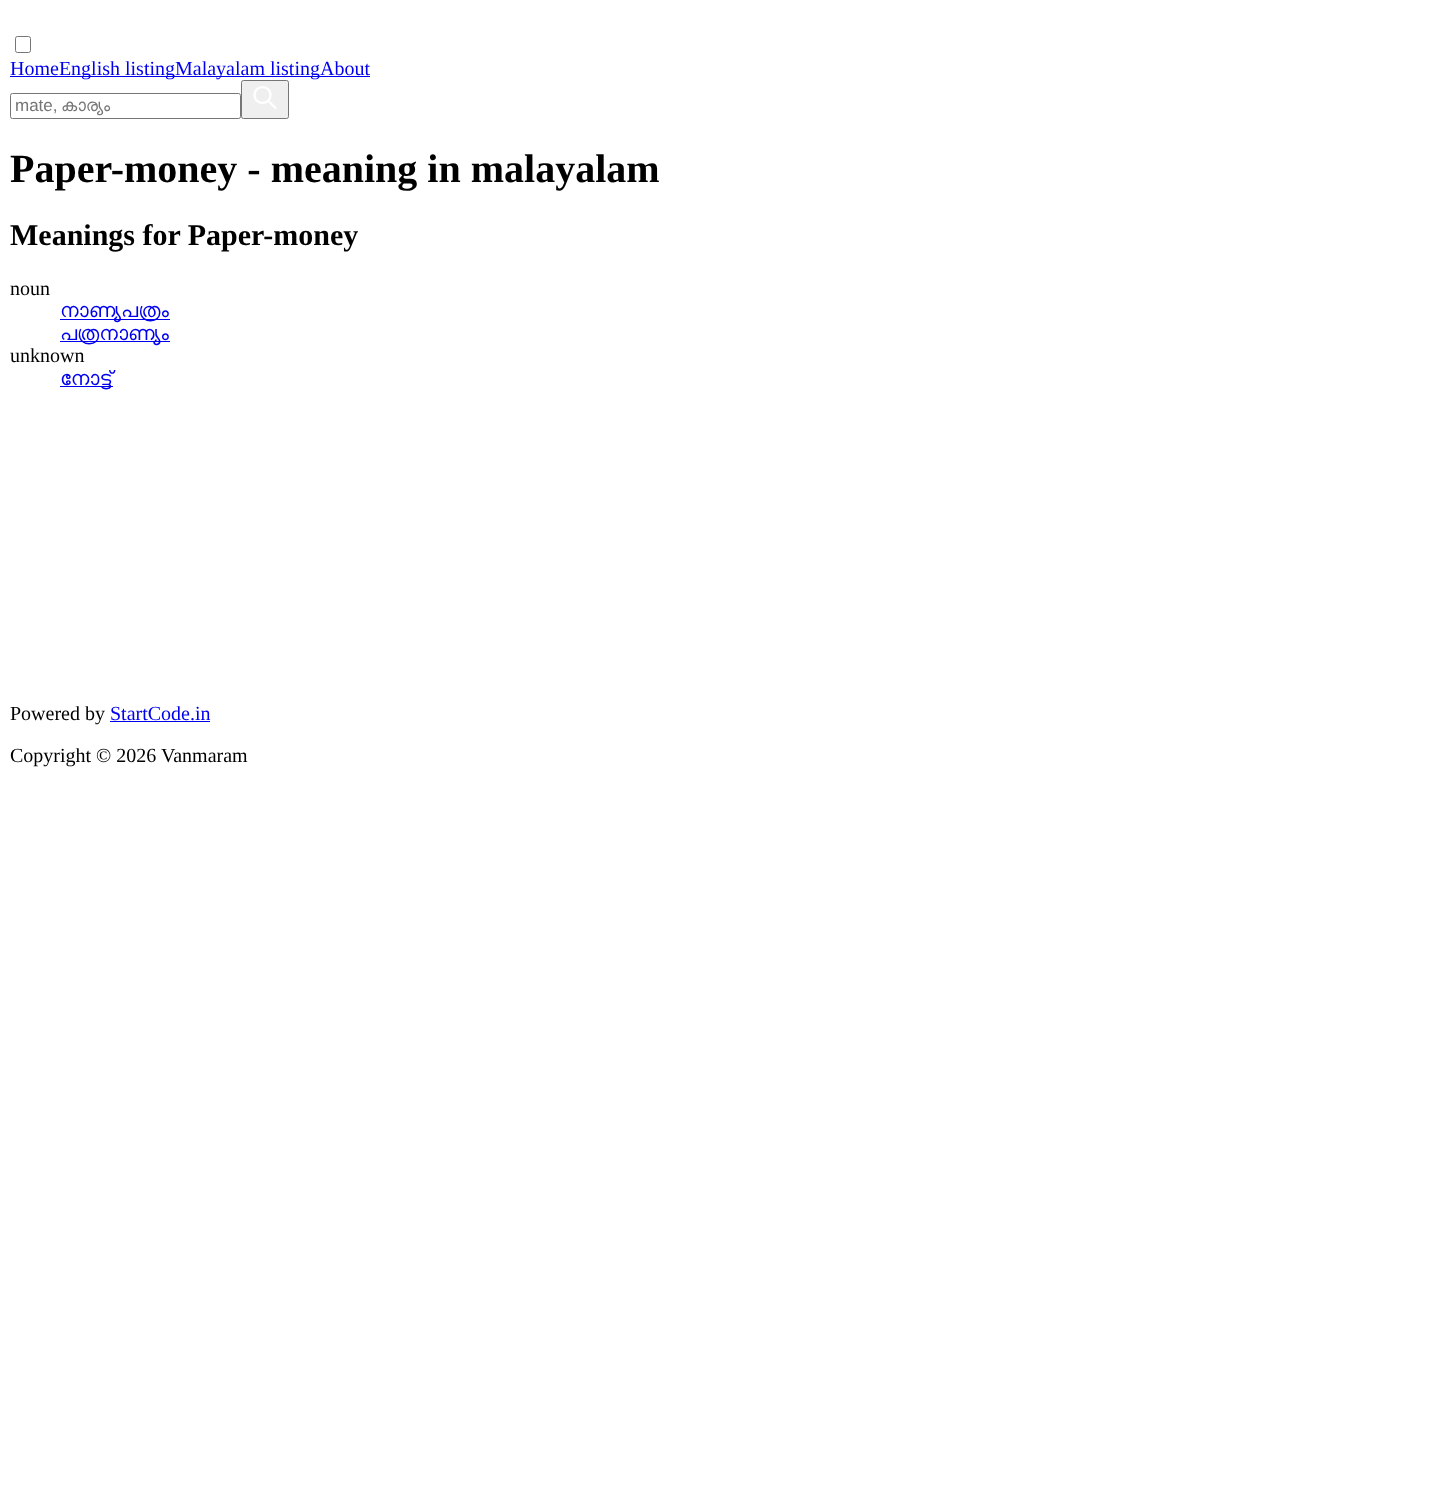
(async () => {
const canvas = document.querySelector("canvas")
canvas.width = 1442
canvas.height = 1510
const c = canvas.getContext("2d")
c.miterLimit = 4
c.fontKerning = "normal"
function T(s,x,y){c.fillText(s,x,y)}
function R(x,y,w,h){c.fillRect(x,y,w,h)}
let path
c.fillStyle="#fff"
R(0,0,1442,1510)
c.beginPath()
c.roundRect(15.5,36.5,15,16,2)
c.strokeStyle="#767676"
c.stroke()
c.fillStyle="#00e"
R(10,76,360,1)
c.font="20px Liberation Serif"
T("HomeEnglish listingMalayalam listingAbout",10,75)
c.beginPath()
c.roundRect(10.5,93.5,230,25,2)
c.stroke()
c.font="17px Liberation Sans"
c.fillStyle="#757575"
T("mate,",15,111)
c.font="17px FreeSans"
T("കാര്യം",61,111)
c.fillStyle="#efefef"
c.beginPath()
c.roundRect(241.5,80.5,47,38,2)
c.fill()
c.stroke()
path = new Path2D("M275.5 108l-7-7m2-6c0 10.5-16 10.5-16 0c0-10.5 16-10.5 16 0z")
c.strokeStyle="#fff"
c.lineWidth=2.3
c.lineCap="round"
c.lineJoin="round"
c.stroke(path)
c.font="bold 40px Liberation Serif"
c.fillStyle="#000"
T("Paper-money - meaning in malayalam",10,182)
c.font="bold 30px Liberation Serif"
T("Meanings for Paper-money",10,245)
c.font="20px Liberation Serif"
T("noun",10,295)
c.fillStyle="#00e"
R(60,319,110,1)
c.font="20px FreeSans"
T("നാണ്യപത്രം",60,317)
R(60,341,110,1)
T("പത്രനാണ്യം",60,340)
c.font="20px Liberation Serif"
c.fillStyle="#000"
T("unknown",10,362)
c.fillStyle="#00e"
R(60,386,53,1)
c.font="20px FreeSans"
T("നോട്ട്",60,385)
c.font="20px Liberation Serif"
c.fillStyle="#000"
T("Powered by",10,720)
c.fillStyle="#00e"
T("StartCode.in",110,720)
R(110,721,100,1)
c.fillStyle="#000"
T("Copyright © 2026",10,762)
T("Vanmaram",161,762)
})()
